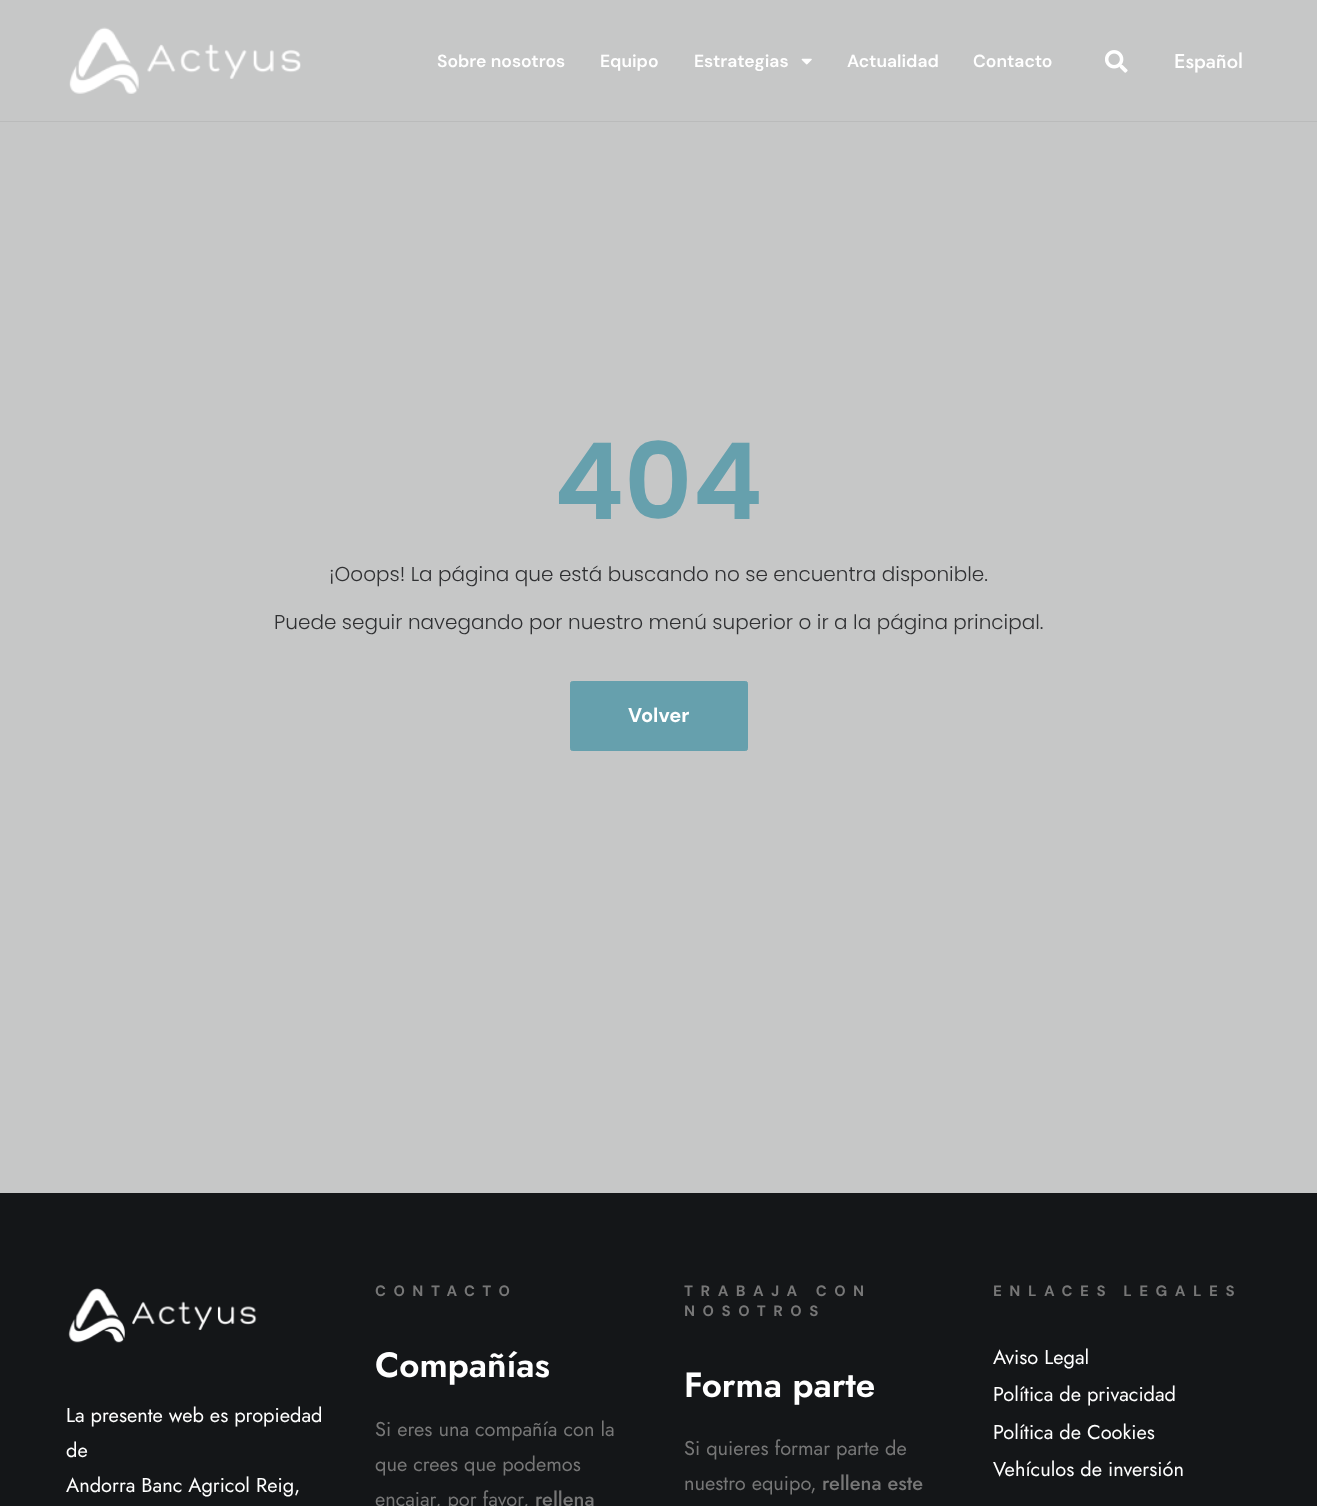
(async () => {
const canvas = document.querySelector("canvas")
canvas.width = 1317
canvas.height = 1506
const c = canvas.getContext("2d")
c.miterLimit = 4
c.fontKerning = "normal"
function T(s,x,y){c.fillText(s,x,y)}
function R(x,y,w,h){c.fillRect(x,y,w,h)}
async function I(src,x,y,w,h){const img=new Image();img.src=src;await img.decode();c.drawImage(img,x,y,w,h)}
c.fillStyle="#c6c7c7"
R(0,0,1317,1506)
c.fillStyle="#babbbb"
R(0,121,1317,1)
await I("1.png",69,27,232,67)
c.font="600 17.5px DM Sans"
c.fillStyle="#fff"
T("Sobre nosotros",437,67)
T("Equipo",600,67)
T("Estrategias",694,67)
await I("2.png",801,58,11,7)
T("Actualidad",847,67)
T("Contacto",973,67)
await I("3.png",1105,50,23,23)
c.font="500 20px Jost"
T("Español",1174,68)
c.font="600 106px Poppins"
c.fillStyle="#66a0ad"
T("404",554,519)
c.font="300 20px Poppins"
c.fillStyle="#303133"
T("¡Ooops! La página que está buscando no se encuentra disponible.",329,581)
T("Puede seguir navegando por nuestro menú superior o ir a la página principal.",274,629)
c.fillStyle="#66a0ad"
c.beginPath()
c.roundRect(570.5,681.5,177,69,2)
c.fill()
c.strokeStyle="#66a0ad"
c.stroke()
c.font="bold 20px DM Sans"
c.fillStyle="#fff"
T("Volver",628,722)
c.fillStyle="#141618"
R(0,1193,1317,313)
await I("4.png",68,1288,189,55)
c.font="20px Jost"
c.fillStyle="#fff"
T("La presente web es propiedad",66,1422)
T("de",66,1457)
T("Andorra Banc Agricol Reig,",66,1492)
c.letterSpacing="7.5px"
c.font="bold 15px 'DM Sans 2'"
c.fillStyle="#777"
T("CONTACTO",375,1296)
c.letterSpacing="0px"
c.font="600 35px Jost"
c.fillStyle="#fff"
T("Compañías",375,1377)
c.font="20px Jost"
c.fillStyle="#777"
T("Si eres una compañía con la",375,1436)
T("que crees que podemos",375,1471)
T("encajar, por favor,",375,1506)
c.font="500 20px Jost"
T("rellena",535,1506)
c.letterSpacing="7.5px"
c.font="bold 15px 'DM Sans 2'"
T("TRABAJA CON",684,1296)
T("NOSOTROS",684,1316)
c.letterSpacing="0px"
c.font="600 35px Jost"
c.fillStyle="#fff"
T("Forma parte",684,1397)
c.font="20px Jost"
c.fillStyle="#777"
T("Si quieres formar parte de",684,1455)
T("nuestro equipo,",684,1490)
c.font="500 20px Jost"
T("rellena este",822,1490)
c.letterSpacing="7.5px"
c.wordSpacing="-1px"
c.font="bold 15px 'DM Sans 2'"
T("ENLACES LEGALES",993,1296)
c.letterSpacing="0px"
c.wordSpacing="0px"
c.font="20px Jost"
c.fillStyle="#fff"
T("Aviso Legal",993,1364)
T("Política de privacidad",993,1401)
T("Política de Cookies",993,1439)
T("Vehículos de inversión",993,1476)
})()
